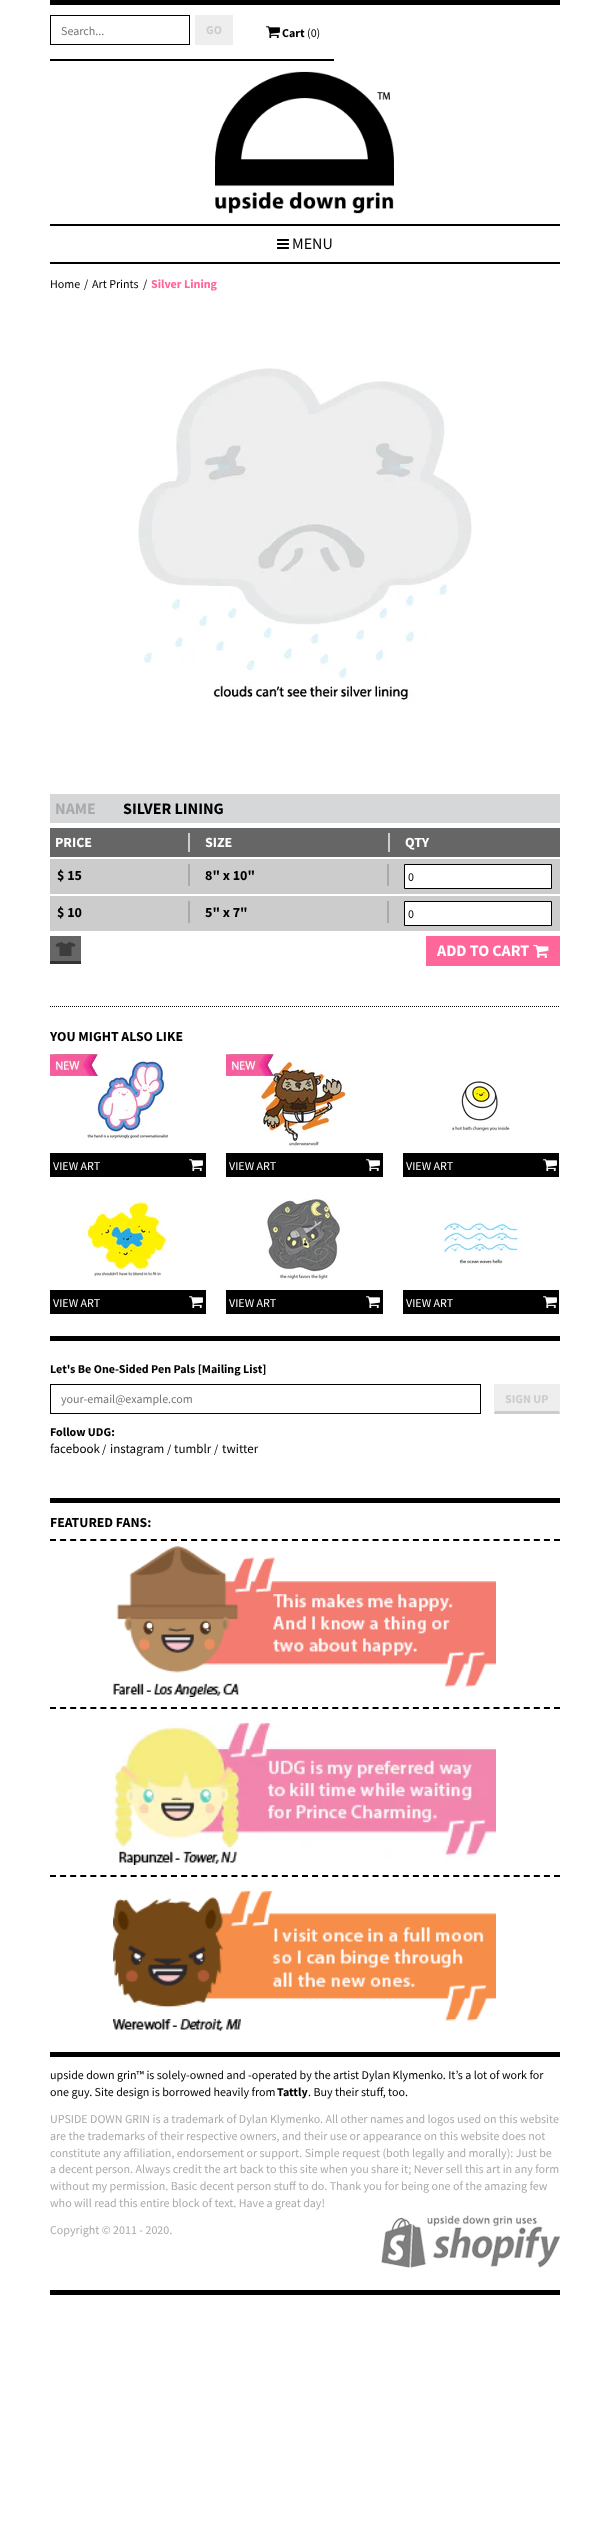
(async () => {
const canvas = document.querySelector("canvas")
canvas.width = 609
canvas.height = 2528
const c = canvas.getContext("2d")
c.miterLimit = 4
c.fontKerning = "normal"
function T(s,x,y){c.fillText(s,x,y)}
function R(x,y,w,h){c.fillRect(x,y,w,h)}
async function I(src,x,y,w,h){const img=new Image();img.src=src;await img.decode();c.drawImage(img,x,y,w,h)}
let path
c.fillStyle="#fff"
R(0,0,609,2528)
c.fillStyle="#000"
R(50,0,510,5)
R(50,59,284,2)
c.strokeStyle="#000"
c.strokeRect(50.5,15.5,139,29)
c.font="12px Source Sans Pro"
c.fillStyle="#757575"
T("Search...",61,35)
c.fillStyle="#eee"
R(195,15,38,30)
c.font="bold 12px Source Sans Pro"
c.fillStyle="#ccc"
T("GO",206,34)
await I("1.png",266,26,14,13)
c.fillStyle="#000"
T("Cart",282,37)
c.font="12px Source Sans Pro"
T("(0)",307,37)
await I("2.png",215,71,179,143)
R(50,224,510,2)
R(50,262,510,2)
await I("3.png",277,239,12,10)
c.font="16px Source Sans Pro"
T("MENU",292,249)
c.font="12px Source Sans Pro"
T("Home",50,288)
T("/",84,288)
T("Art Prints",92,288)
T("/",143,288)
c.font="bold 12px Source Sans Pro"
c.fillStyle="#f69"
T("Silver Lining",151,288)
await I("4.png",136,368,336,334)
c.fillStyle="#d6d7d9"
R(50,794,510,29)
c.font="bold 16px Source Sans Pro"
c.fillStyle="#aaa"
T("NAME",55,814)
c.fillStyle="#000"
T("SILVER LINING",123,814)
c.fillStyle="#666"
R(50,828,510,29)
c.fillStyle="#ccc"
R(188,833,2,19)
c.font="bold 14px Source Sans Pro"
c.fillStyle="#fff"
T("PRICE",55,847)
c.fillStyle="#ccc"
R(388,833,2,19)
c.fillStyle="#fff"
T("SIZE",205,847)
T("QTY",405,847)
c.fillStyle="#ccc"
R(50,859,510,35)
c.fillStyle="#aaa"
R(188,864,2,22)
c.fillStyle="#000"
T("$ 15",57,880)
c.fillStyle="#aaa"
R(387,864,2,22)
c.fillStyle="#000"
T("8\" x 10\"",205,880)
c.fillStyle="#fff"
c.beginPath()
c.rect(404.5,864.5,147,24)
c.fill()
c.stroke()
c.font="12px Source Sans Pro"
c.fillStyle="#000"
T("0",408,881)
c.fillStyle="#ccc"
R(50,896,510,35)
c.fillStyle="#aaa"
R(188,901,2,22)
c.font="bold 14px Source Sans Pro"
c.fillStyle="#000"
T("$ 10",57,917)
c.fillStyle="#aaa"
R(387,901,2,22)
c.fillStyle="#000"
T("5\" x 7\"",205,917)
c.fillStyle="#fff"
c.beginPath()
c.rect(404.5,901.5,147,24)
c.fill()
c.stroke()
c.font="12px Source Sans Pro"
c.fillStyle="#000"
T("0",408,918)
c.fillStyle="#666"
R(50,936,31,25)
c.fillStyle="#333"
R(50,961,31,3)
await I("5.png",55,941,21,15)
c.fillStyle="#f69"
R(426,936,134,30)
c.font="bold 16px Source Sans Pro"
c.fillStyle="#fff"
T("ADD TO CART",437,956)
await I("6.png",533,945,16,13)
path = new Path2D("M50 1006.5h510")
c.setLineDash([1,1])
c.stroke(path)
c.font="bold 13.75px Source Sans Pro"
c.fillStyle="#000"
T("YOU MIGHT ALSO LIKE",50,1041)
await I("8.png",87,1060,81,81)
await I("7.png",50,1054,48,22)
R(50,1153,156,24)
c.font="12px Source Sans Pro"
c.fillStyle="#fff"
T("VIEW ART",53,1170)
await I("9.png",189,1159,14,13)
await I("11.png",258,1061,89,88)
await I("10.png",226,1054,49,22)
c.fillStyle="#000"
R(226,1153,157,24)
c.fillStyle="#fff"
T("VIEW ART",229,1170)
await I("9.png",366,1159,14,13)
await I("12.png",452,1081,58,52)
c.fillStyle="#000"
R(403,1153,156,24)
c.fillStyle="#fff"
T("VIEW ART",406,1170)
await I("9.png",543,1159,14,13)
await I("13.png",82,1198,88,80)
c.fillStyle="#000"
R(50,1290,156,24)
c.fillStyle="#fff"
T("VIEW ART",53,1307)
await I("9.png",189,1296,14,13)
await I("14.png",266,1198,76,84)
c.fillStyle="#000"
R(226,1290,157,24)
c.fillStyle="#fff"
T("VIEW ART",229,1307)
await I("9.png",366,1296,14,13)
await I("15.png",443,1221,80,45)
c.fillStyle="#000"
R(403,1290,156,24)
c.fillStyle="#fff"
T("VIEW ART",406,1307)
await I("9.png",543,1296,14,13)
c.fillStyle="#000"
R(50,1336,510,5)
R(50,2290,510,5)
c.font="bold 12px Source Sans Pro"
T("Let's Be One-Sided Pen Pals [Mailing List]",50,1373)
c.setLineDash([])
c.strokeRect(50.5,1384.5,430,29)
c.font="12px Source Sans Pro"
c.fillStyle="#757575"
T("your-email@example.com",61,1403)
c.fillStyle="#eee"
R(494,1384,66,30)
c.fillStyle="#ccc"
path = new Path2D("M560 1414h-66l1-3h64z")
c.fill(path)
c.font="bold 12px Source Sans Pro"
T("SIGN UP",505,1403)
c.fillStyle="#000"
T("Follow UDG:",50,1436)
c.font="13px Source Sans Pro"
T("facebook",50,1453)
c.font="12px Source Sans Pro"
T("/",102,1453)
c.font="13px Source Sans Pro"
T("instagram",110,1453)
c.font="12px Source Sans Pro"
T("/",167,1453)
c.font="13px Source Sans Pro"
T("tumblr",174,1453)
c.font="12px Source Sans Pro"
T("/",214,1453)
c.font="13px Source Sans Pro"
T("twitter",222,1453)
R(50,1498,510,5)
R(50,2052,510,5)
c.font="bold 13.75px Source Sans Pro"
T("FEATURED FANS:",50,1527)
path = new Path2D("M50 1540h510")
c.lineWidth=2
c.setLineDash([6,4.08])
c.stroke(path)
await I("16.png",113,1546,383,151)
path = new Path2D("M50 1708h510")
c.stroke(path)
await I("17.png",113,1714,383,151)
path = new Path2D("M50 1876h510")
c.stroke(path)
await I("18.png",113,1890,383,141)
c.font="12px Source Sans Pro"
T("upside down grin™ is solely-owned and -operated by the artist Dylan Klymenko. It’s a lot of work for",50,2079)
T("one guy. Site design is borrowed heavily from",50,2096)
c.font="bold 12px Source Sans Pro"
T("Tattly",277,2096)
c.font="12px Source Sans Pro"
T(". Buy their stuff, too.",308,2096)
c.fillStyle="#aaa"
T("UPSIDE DOWN GRIN is a trademark of Dylan Klymenko. All other names and logos used on this website",50,2123)
T("are the trademarks of their respective owners, and their use or appearance on this website does not",50,2140)
T("constitute any affiliation, endorsement or support. Simple request (both legally and morally): Just be",50,2157)
T("a decent person. Always credit the art back to this site when you share it; Never sell this art in any form",50,2173)
T("without my permission. Basic decent person stuff to do. Thank you for being one of the amazing few",50,2190)
T("who will read this entire block of text. Have a great day!",50,2207)
T("Copyright © 2011 - 2020.",50,2234)
await I("19.png",381,2215,179,53)
})()
